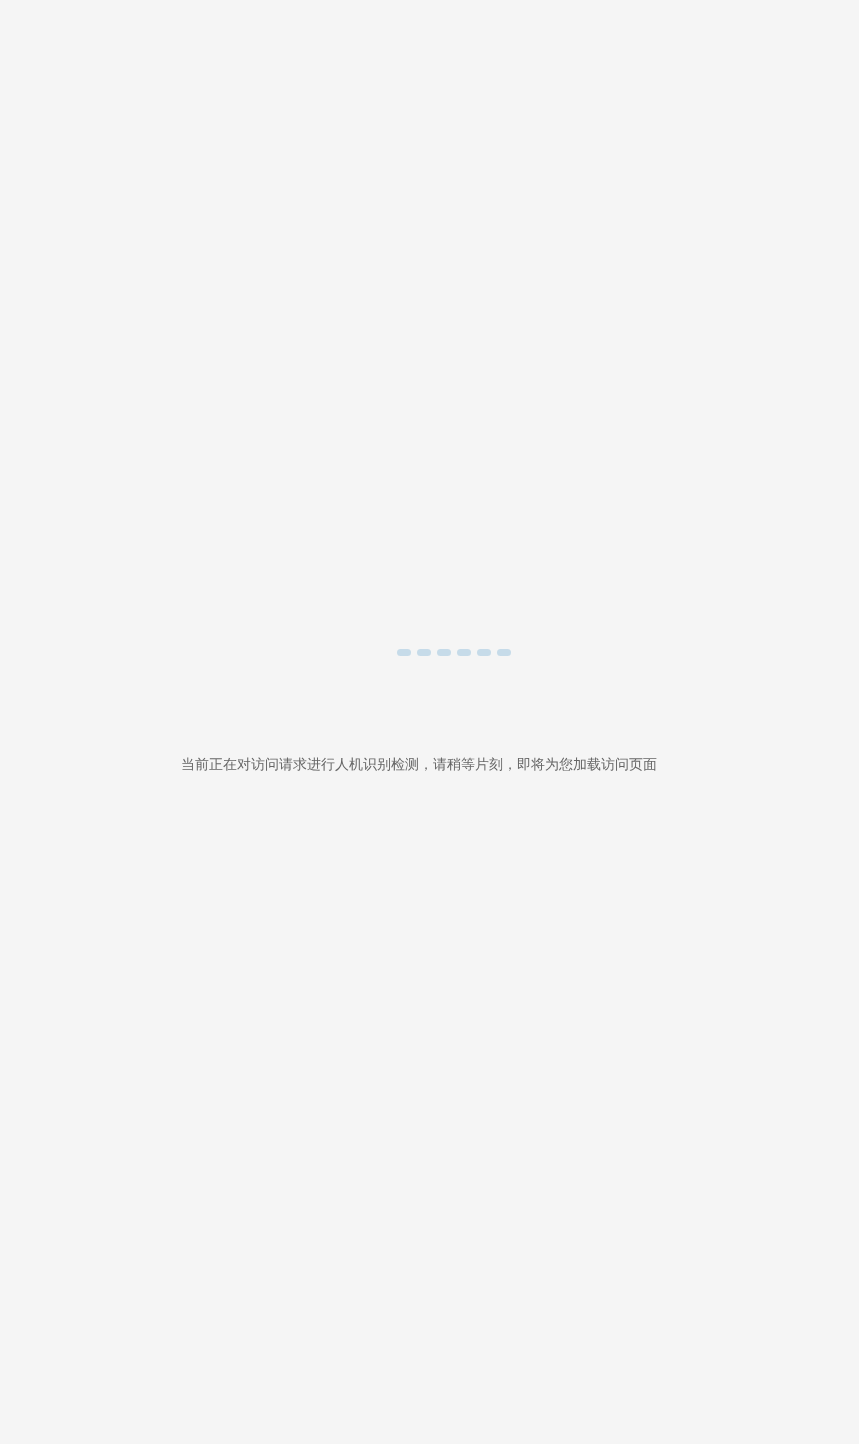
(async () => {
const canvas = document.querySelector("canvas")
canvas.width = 859
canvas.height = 1444
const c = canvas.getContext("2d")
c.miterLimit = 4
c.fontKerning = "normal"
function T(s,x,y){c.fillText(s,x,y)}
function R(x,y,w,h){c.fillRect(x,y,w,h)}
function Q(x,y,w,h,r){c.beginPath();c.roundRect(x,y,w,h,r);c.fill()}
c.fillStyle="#f5f5f5"
R(0,0,859,1444)
c.fillStyle="#c6dbe9"
Q(397,649,14,7,3.5)
Q(417,649,14,7,3.5)
Q(437,649,14,7,3.5)
Q(457,649,14,7,3.5)
Q(477,649,14,7,3.5)
Q(497,649,14,7,3.5)
c.font="500 14px WenQuanYi Zen Hei"
c.fillStyle="#666"
T("当前正在对访问请求进行人机识别检测，请稍等片刻，即将为您加载访问页面",181,769)
})()
